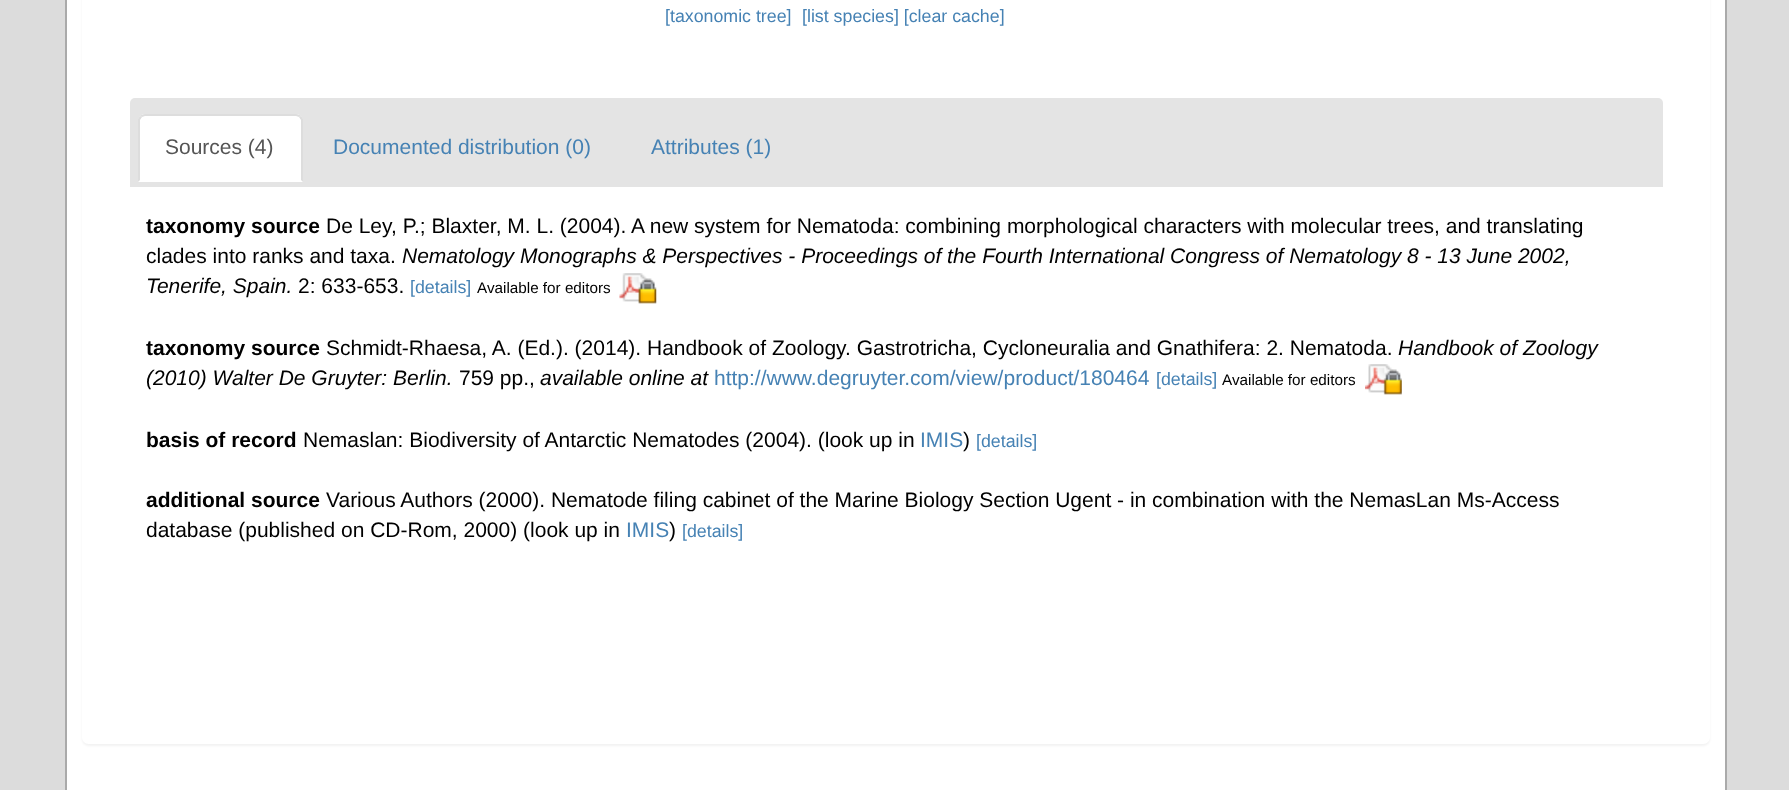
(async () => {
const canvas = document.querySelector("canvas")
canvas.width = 1789
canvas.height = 790
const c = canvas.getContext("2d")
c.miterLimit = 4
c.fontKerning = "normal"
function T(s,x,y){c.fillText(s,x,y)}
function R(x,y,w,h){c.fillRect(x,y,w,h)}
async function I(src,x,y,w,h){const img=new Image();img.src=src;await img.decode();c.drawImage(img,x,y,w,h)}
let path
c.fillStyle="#dcdcdc"
R(0,0,1789,790)
c.fillStyle="#fff"
c.beginPath()
c.rect(66,-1,1660,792)
c.fill()
c.strokeStyle="#aaa"
c.lineWidth=2
c.stroke()
c.save()
path = new Path2D("M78 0h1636v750h-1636zm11-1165h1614c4 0 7 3 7 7v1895c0 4-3 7-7 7h-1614c-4 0-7-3-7-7v-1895c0-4 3-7 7-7z")
c.clip(path,"evenodd")
c.fillStyle="#0000000d"
c.filter="blur(1px)"
c.beginPath()
c.roundRect(82,-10,1628,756,7)
c.fill()
c.filter="none"
c.restore()
c.font="17.8px Liberation Sans"
c.fillStyle="#4682b4"
T("[taxonomic tree]",665,22)
T("[list species] [clear cache]",802,22)
c.fillStyle="#e4e4e4"
c.beginPath()
c.roundRect(130,98,1533,89,[5,5,0,0])
c.fill()
c.fillStyle="#fff"
c.beginPath()
c.roundRect(138,114,165,68,[7,7,0,0])
c.fill()
c.fillStyle="#ddd"
path = new Path2D("M145 114c-2 0-4 1-5 2l2 1l3-1h151l3 1l2-1c-1-1-3-2-5-2z")
c.fill(path)
path = new Path2D("M301 116l2 3v63l-2-2v-60l-2-3z")
c.fill(path)
path = new Path2D("M138 182l2-2v-60l2-3l-2-1l-2 3z")
c.fill(path)
c.font="21px Liberation Sans"
c.fillStyle="#555"
T("Sources (4)",165,154)
c.fillStyle="#4682b4"
T("Documented distribution (0)",333,154)
T("Attributes (1)",651,154)
c.font="bold 21px Liberation Sans"
c.fillStyle="#000"
T("taxonomy source",146,233)
c.font="21px Liberation Sans"
T("De Ley, P.; Blaxter, M. L. (2004). A new system for Nematoda: combining morphological characters with molecular trees, and translating",326,233)
T("clades into ranks and taxa.",146,263)
c.font="italic 21px Liberation Sans"
T("Nematology Monographs & Perspectives - Proceedings of the Fourth International Congress of Nematology 8 - 13 June 2002,",402,263)
T("Tenerife, Spain.",146,293)
c.font="21px Liberation Sans"
T("2: 633-653.",298,293)
c.font="17.8px Liberation Sans"
c.fillStyle="#4682b4"
T("[details]",410,293)
c.font="15.25px Liberation Sans"
c.fillStyle="#000"
T("Available for editors",477,293)
await I("1.png",619,273,38,31)
c.font="bold 21px Liberation Sans"
T("taxonomy source",146,355)
c.font="21px Liberation Sans"
T("Schmidt-Rhaesa, A. (Ed.). (2014). Handbook of Zoology. Gastrotricha, Cycloneuralia and Gnathifera: 2. Nematoda.",326,355)
c.font="italic 21px Liberation Sans"
T("Handbook of Zoology",1398,355)
T("(2010) Walter De Gruyter: Berlin.",146,385)
c.font="21px Liberation Sans"
T("759 pp.,",459,385)
c.font="italic 21px Liberation Sans"
T("available online at",540,385)
c.font="21px Liberation Sans"
c.fillStyle="#4682b4"
T("http://www.degruyter.com/view/product/180464",714,385)
c.font="17.8px Liberation Sans"
T("[details]",1156,385)
c.font="15.25px Liberation Sans"
c.fillStyle="#000"
T("Available for editors",1222,385)
await I("2.png",1365,364,37,31)
c.font="bold 21px Liberation Sans"
T("basis of record",146,447)
c.font="21px Liberation Sans"
T("Nemaslan: Biodiversity of Antarctic Nematodes (2004). (look up in",303,447)
c.fillStyle="#4682b4"
T("IMIS",920,447)
c.fillStyle="#000"
T(")",963,447)
c.font="17.8px Liberation Sans"
c.fillStyle="#4682b4"
T("[details]",976,447)
c.font="bold 21px Liberation Sans"
c.fillStyle="#000"
T("additional source",146,507)
c.font="21px Liberation Sans"
T("Various Authors (2000). Nematode filing cabinet of the Marine Biology Section Ugent - in combination with the NemasLan Ms-Access",326,507)
T("database (published on CD-Rom, 2000) (look up in",146,537)
c.fillStyle="#4682b4"
T("IMIS",626,537)
c.fillStyle="#000"
T(")",669,537)
c.font="17.8px Liberation Sans"
c.fillStyle="#4682b4"
T("[details]",682,537)
})()
